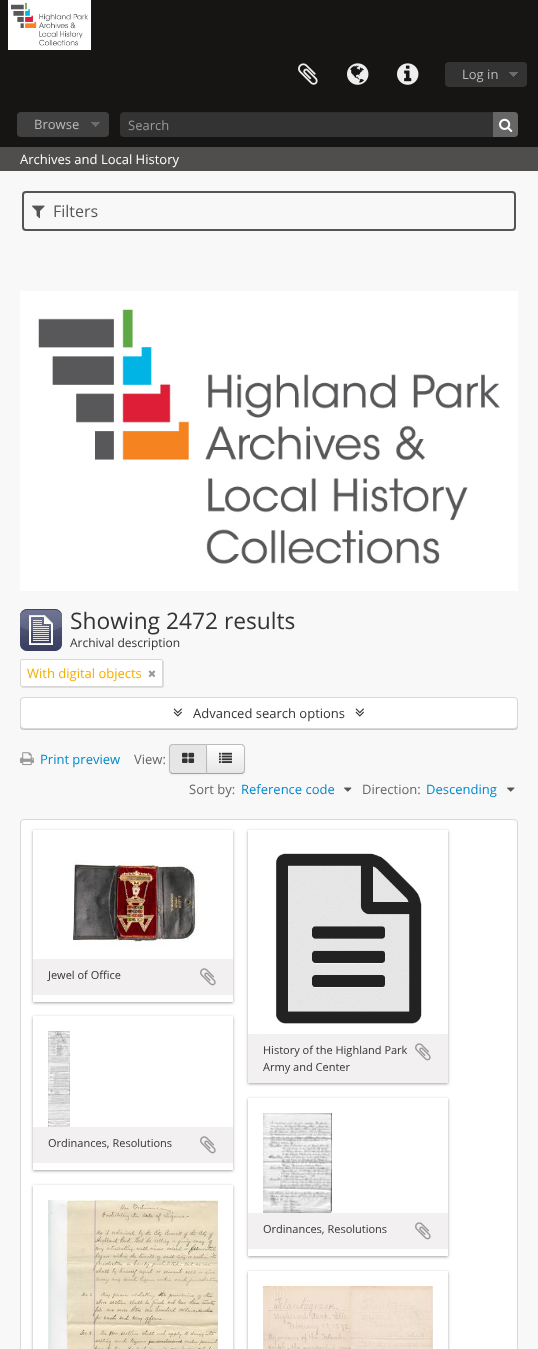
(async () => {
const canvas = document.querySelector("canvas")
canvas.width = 538
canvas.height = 1349
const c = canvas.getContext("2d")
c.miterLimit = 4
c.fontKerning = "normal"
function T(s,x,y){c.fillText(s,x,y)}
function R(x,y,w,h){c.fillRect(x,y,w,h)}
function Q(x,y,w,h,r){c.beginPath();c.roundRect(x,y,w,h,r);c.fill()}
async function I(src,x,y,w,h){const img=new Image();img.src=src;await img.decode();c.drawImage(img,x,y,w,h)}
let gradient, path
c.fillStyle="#f8f8f8"
R(0,0,538,1349)
c.fillStyle="#161514"
R(0,0,538,147)
await I("1.png",8,0,83,50)
await I("2.png",298,63,20,22)
await I("3.png",347,63,22,22)
await I("4.png",397,63,22,22)
c.fillStyle="#333"
Q(445,62,82,25,4)
await I("5.png",509,72,9,5)
c.font="13px Open Sans"
c.fillStyle="#bbb"
T("Log in",462,79)
c.fillStyle="#404040"
Q(17,112,92,25,4)
await I("6.png",91,122,9,5)
c.fillStyle="#bbb"
T("Browse",34,129)
c.fillStyle="#333"
Q(120,112,398,25,4)
c.fillStyle="#00000012"
path = new Path2D("M124 113h390c2 0 4 2 4 4c0-3-1-5-4-5h-390c-3 0-4 2-4 5c0-2 2-4 4-4z")
c.fill(path)
c.fillStyle="#999"
T("Search",128,130)
c.fillStyle="#666"
c.beginPath()
c.roundRect(493,112,25,25,[0,4,4,0])
c.fill()
await I("7.png",499,118,14,14)
c.fillStyle="#4f4e4d"
R(0,147,538,24)
c.fillStyle="#fff"
T("Archives and Local History",20,164)
c.beginPath()
c.roundRect(23,192,492,38,3)
c.strokeStyle="#555"
c.lineWidth=2
c.stroke()
await I("8.png",32,205,13,14)
c.font="16px Open Sans"
c.fillStyle="#555"
T("Filters",53,217)
await I("9.png",20,291,498,300)
await I("10.png",20,609,42,42)
c.font="22.75px Open Sans"
c.fillStyle="#333"
T("Showing 2472 results",70,629)
c.font="12px Open Sans"
T("Archival description",70,647)
c.fillStyle="#0000001a"
c.filter="blur(0.5px)"
c.beginPath()
c.roundRect(21,660,143,28,2)
c.fill()
c.filter="none"
c.fillStyle="#fff"
c.beginPath()
c.roundRect(20.5,659.5,142,27,1.5)
c.fill()
c.strokeStyle="#d9d9d9"
c.lineWidth=1
c.stroke()
c.font="13px Open Sans"
c.fillStyle="#f6ac00"
T("With digital objects",27,678)
await I("11.png",148,670,8,7)
c.fillStyle="#00000033"
c.filter="blur(0.5px)"
c.beginPath()
c.roundRect(20,698,498,32,4)
c.fill()
c.filter="none"
c.fillStyle="#fff"
c.beginPath()
c.roundRect(20.5,697.5,497,31,3.5)
c.fill()
c.stroke()
await I("12.png",173,708,9,9)
c.fillStyle="#333"
T("Advanced search options",193,718)
await I("12.png",355,708,9,9)
await I("13.png",20,752,14,14)
c.fillStyle="#08c"
T("Print preview",40,764)
c.fillStyle="#666"
T("View:",134,764)
c.fillStyle="#0000000d"
c.filter="blur(1px)"
c.beginPath()
c.roundRect(206,745,39,30,4)
c.fill()
c.filter="none"
c.save()
c.beginPath()
c.roundRect(206,744,39,30,[0,4,4,0])
c.clip()
gradient = c.createLinearGradient(226,745,226,773)
gradient.addColorStop(0,"#fff")
gradient.addColorStop(1,"#e6e6e6")
c.fillStyle = gradient
R(207,745,38,28)
c.restore()
c.fillStyle="#bbb"
path = new Path2D("M206 744l1 1h34c1 0 1.5 .5 2 1l1-1c-1-.5-2-1-3-1z")
c.fill(path)
path = new Path2D("M245 770v-22c0-1-.5-2-1-3l-1 1c.5 .5 1 1 1 2v22c0 1-.5 1.5-1 2l1 1c.5-1 1-2 1-3z")
c.fill(path)
c.fillStyle="#a2a2a2"
path = new Path2D("M241 774c1 0 2-.5 3-1l-1-1c-.5 .5-1 1-2 1h-34l-1 1z")
c.fill(path)
c.fillStyle="#0000000d"
c.filter="blur(1px)"
c.beginPath()
c.roundRect(169,745,38,30,4)
c.fill()
c.filter="none"
c.fillStyle="#e6e6e6"
c.beginPath()
c.roundRect(169,744,38,30,[4,0,0,4])
c.fill()
c.fillStyle="#bbb"
path = new Path2D("M173 744c-1 0-2 .5-3 1l1 1c.5-.5 1-1 2-1h33l1-1z")
c.fill(path)
path = new Path2D("M207 744l-1 1v28l1 1z")
c.fill(path)
c.fillStyle="#a2a2a2"
path = new Path2D("M207 774l-1-1h-33c-1 0-1.5-.5-2-1l-1 1c1 .5 2 1 3 1z")
c.fill(path)
c.fillStyle="#bbb"
path = new Path2D("M169 748v22c0 1 .5 2 1 3l1-1c-.5-.5-1-1-1-2v-22c0-1 .5-1.5 1-2l-1-1c-.5 1-1 2-1 3z")
c.fill(path)
await I("14.png",182,752,13,11)
await I("15.png",219,752,13,11)
c.fillStyle="#666"
T("Sort by:",189,794)
c.fillStyle="#08c"
T("Reference code",241,794)
await I("16.png",344,787,8,5)
c.fillStyle="#666"
T("Direction:",362,794)
c.fillStyle="#08c"
T("Descending",426,794)
await I("16.png",507,787,8,5)
c.fillStyle="#00000033"
c.filter="blur(0.5px)"
c.beginPath()
c.roundRect(20,820,498,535,4)
c.fill()
c.filter="none"
c.fillStyle="#fff"
c.beginPath()
c.roundRect(20.5,819.5,497,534,3.5)
c.fill()
c.stroke()
c.save()
path = new Path2D("M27 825h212v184h-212zm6 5h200v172h-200z")
c.clip(path,"evenodd")
c.fillStyle="#19191966"
c.filter="blur(1.5px)"
c.beginPath()
c.rect(33,831,200,172)
c.fill()
c.filter="none"
c.restore()
await I("17.png",73,860,126,87)
c.fillStyle="#f2f0f0"
R(33,959,200,36)
c.font="11px Open Sans"
c.fillStyle="#333"
T("Jewel of Office",48,979)
await I("18.png",200,968,16,18)
c.save()
path = new Path2D("M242 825h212v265h-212zm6 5h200v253h-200z")
c.clip(path,"evenodd")
c.fillStyle="#19191966"
c.filter="blur(1.5px)"
c.beginPath()
c.rect(248,831,200,253)
c.fill()
c.filter="none"
c.restore()
await I("19.png",263,845,170,189)
c.fillStyle="#f2f0f0"
R(248,1034,200,49)
c.fillStyle="#333"
T("History of the Highland Park",263,1054)
await I("18.png",415,1043,16,18)
T("Army and Center",263,1071)
c.save()
path = new Path2D("M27 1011h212v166h-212zm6 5h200v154h-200z")
c.clip(path,"evenodd")
c.fillStyle="#19191966"
c.filter="blur(1.5px)"
c.beginPath()
c.rect(33,1017,200,154)
c.fill()
c.filter="none"
c.restore()
await I("20.png",48,1031,22,96)
c.fillStyle="#f2f0f0"
R(33,1127,200,36)
c.fillStyle="#333"
T("Ordinances, Resolutions",48,1147)
await I("18.png",200,1136,16,18)
c.save()
path = new Path2D("M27 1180h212v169h-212zm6 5h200v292h-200z")
c.clip(path,"evenodd")
c.fillStyle="#19191966"
c.filter="blur(1.5px)"
c.beginPath()
c.rect(33,1186,200,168)
c.fill()
c.filter="none"
c.restore()
await I("21.png",48,1200,170,149)
c.save()
path = new Path2D("M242 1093h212v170h-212zm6 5h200v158h-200z")
c.clip(path,"evenodd")
c.fillStyle="#19191966"
c.filter="blur(1.5px)"
c.beginPath()
c.rect(248,1099,200,158)
c.fill()
c.filter="none"
c.restore()
await I("22.png",263,1113,69,100)
c.fillStyle="#f2f0f0"
R(248,1213,200,36)
c.fillStyle="#333"
T("Ordinances, Resolutions",263,1233)
await I("18.png",415,1222,16,18)
c.save()
path = new Path2D("M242 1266h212v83h-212zm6 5h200v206h-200z")
c.clip(path,"evenodd")
c.fillStyle="#19191966"
c.filter="blur(1.5px)"
c.beginPath()
c.rect(248,1272,200,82)
c.fill()
c.filter="none"
c.restore()
await I("23.png",263,1286,170,63)
})()
